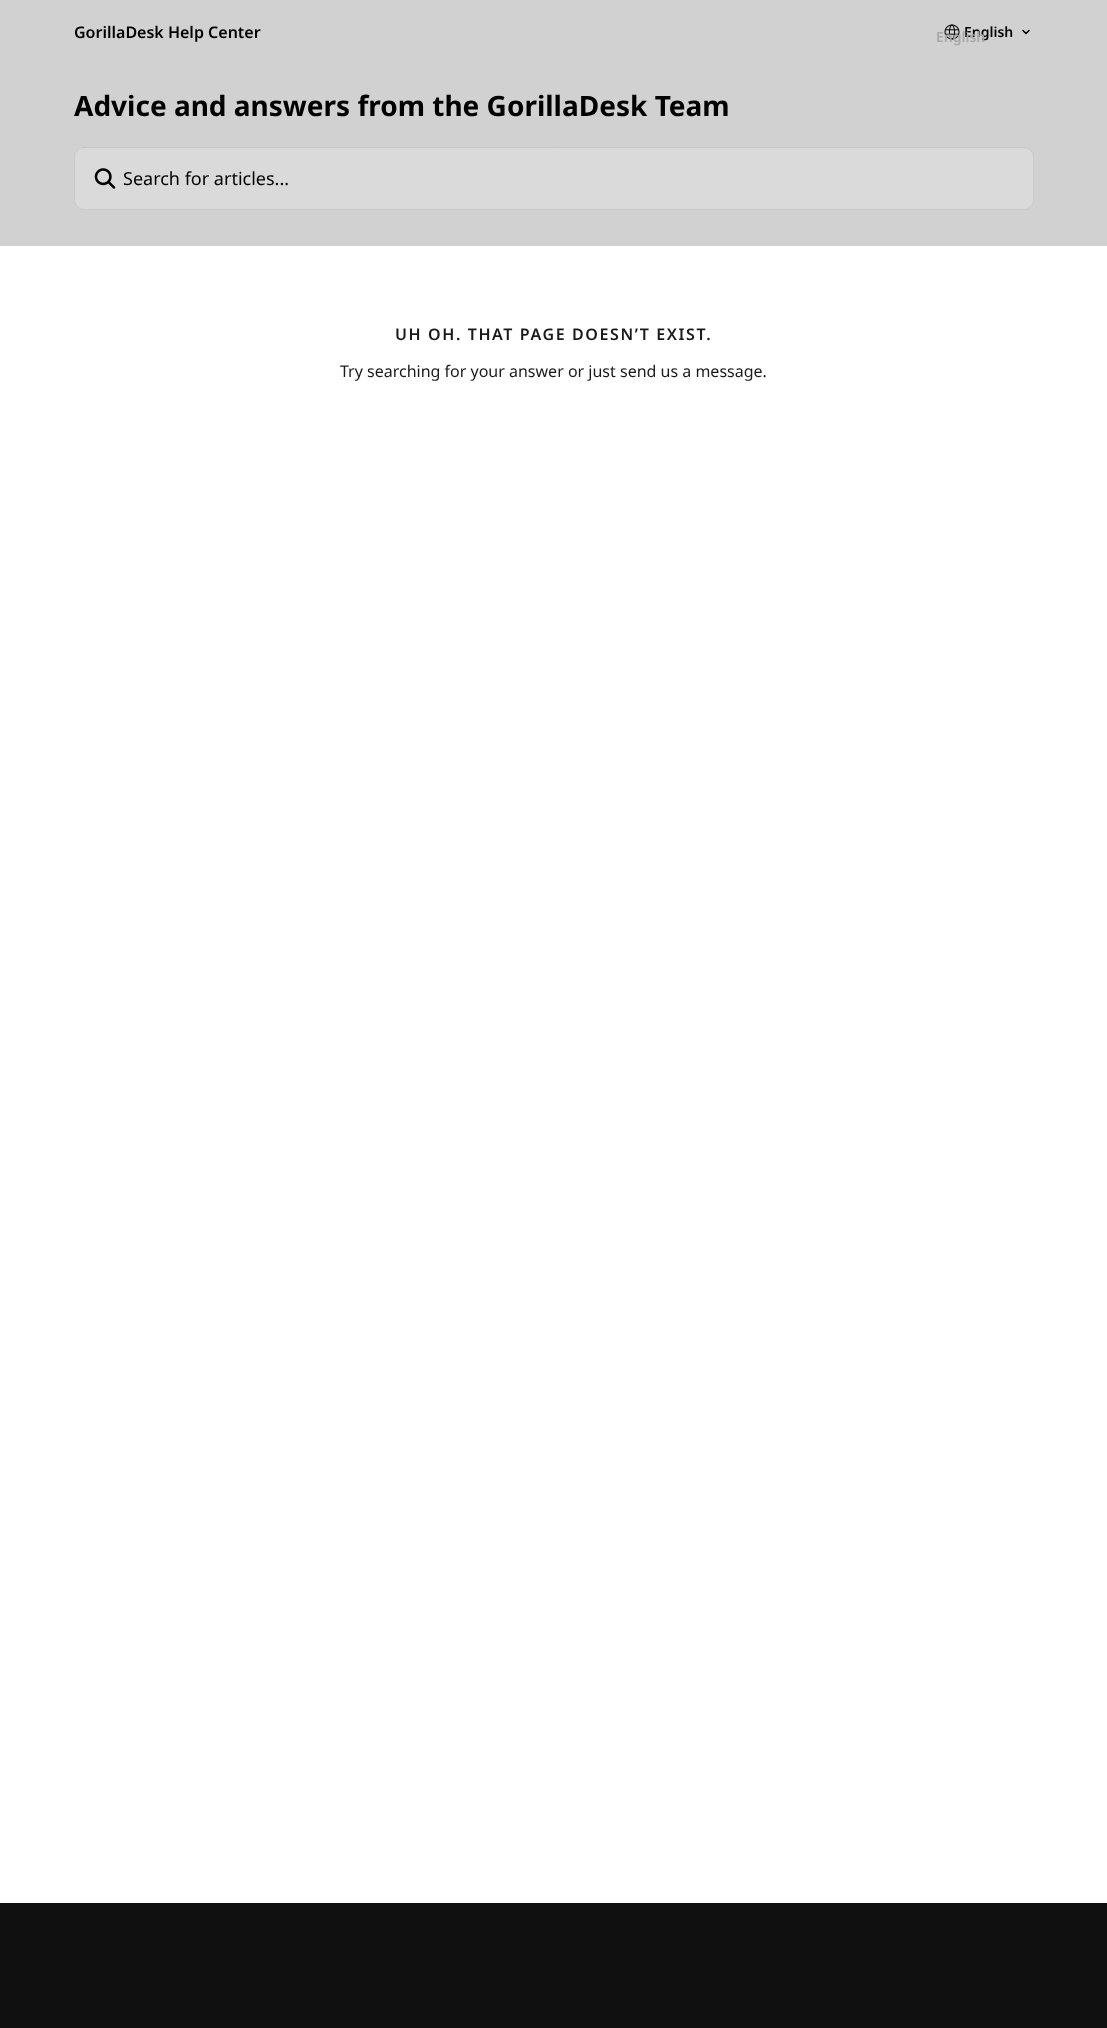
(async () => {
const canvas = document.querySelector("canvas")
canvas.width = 1107
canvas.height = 2028
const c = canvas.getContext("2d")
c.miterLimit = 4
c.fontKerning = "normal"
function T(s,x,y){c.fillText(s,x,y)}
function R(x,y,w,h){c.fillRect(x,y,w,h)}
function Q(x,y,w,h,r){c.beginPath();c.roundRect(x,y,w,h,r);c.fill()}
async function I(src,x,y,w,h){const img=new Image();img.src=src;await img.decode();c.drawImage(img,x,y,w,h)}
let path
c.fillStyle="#fff"
R(0,0,1107,2028)
c.fillStyle="#d1d1d1"
R(0,0,1107,246)
c.font="600 16px Noto Sans"
c.fillStyle="#000"
T("GorillaDesk Help Center",74,38)
await I("1.png",944,24,16,16)
c.font="600 14px Noto Sans"
T("English",964,37)
c.fillStyle="#a9a9a9"
T("English",936,42)
path = new Path2D("M1023 30.5l3 3l3-3")
c.strokeStyle="#000"
c.lineWidth=1.5
c.lineCap="round"
c.lineJoin="round"
c.stroke(path)
c.font="bold 28px Noto Sans"
c.fillStyle="#000"
T("Advice and answers from the GorillaDesk Team",74,116)
c.fillStyle="#ffffff33"
Q(74,147,960,63,10)
c.beginPath()
c.roundRect(74.5,147.5,959,62,9.5)
c.strokeStyle="#00000014"
c.lineWidth=1
c.lineJoin="miter"
c.stroke()
await I("2.png",94,168,22,21)
c.font="18px Noto Sans"
c.fillStyle="#000"
T("Search for articles...",123,185)
c.letterSpacing="1.6px"
c.font="600 16px Noto Sans"
c.fillStyle="#1a1a1a"
T("UH OH. THAT PAGE DOESN’T EXIST.",395,340)
c.letterSpacing="0px"
c.font="16px Noto Sans"
T("Try searching for your answer or just send us a message.",340,377)
c.fillStyle="#0f0f0f"
R(0,1903,1107,125)
})()
